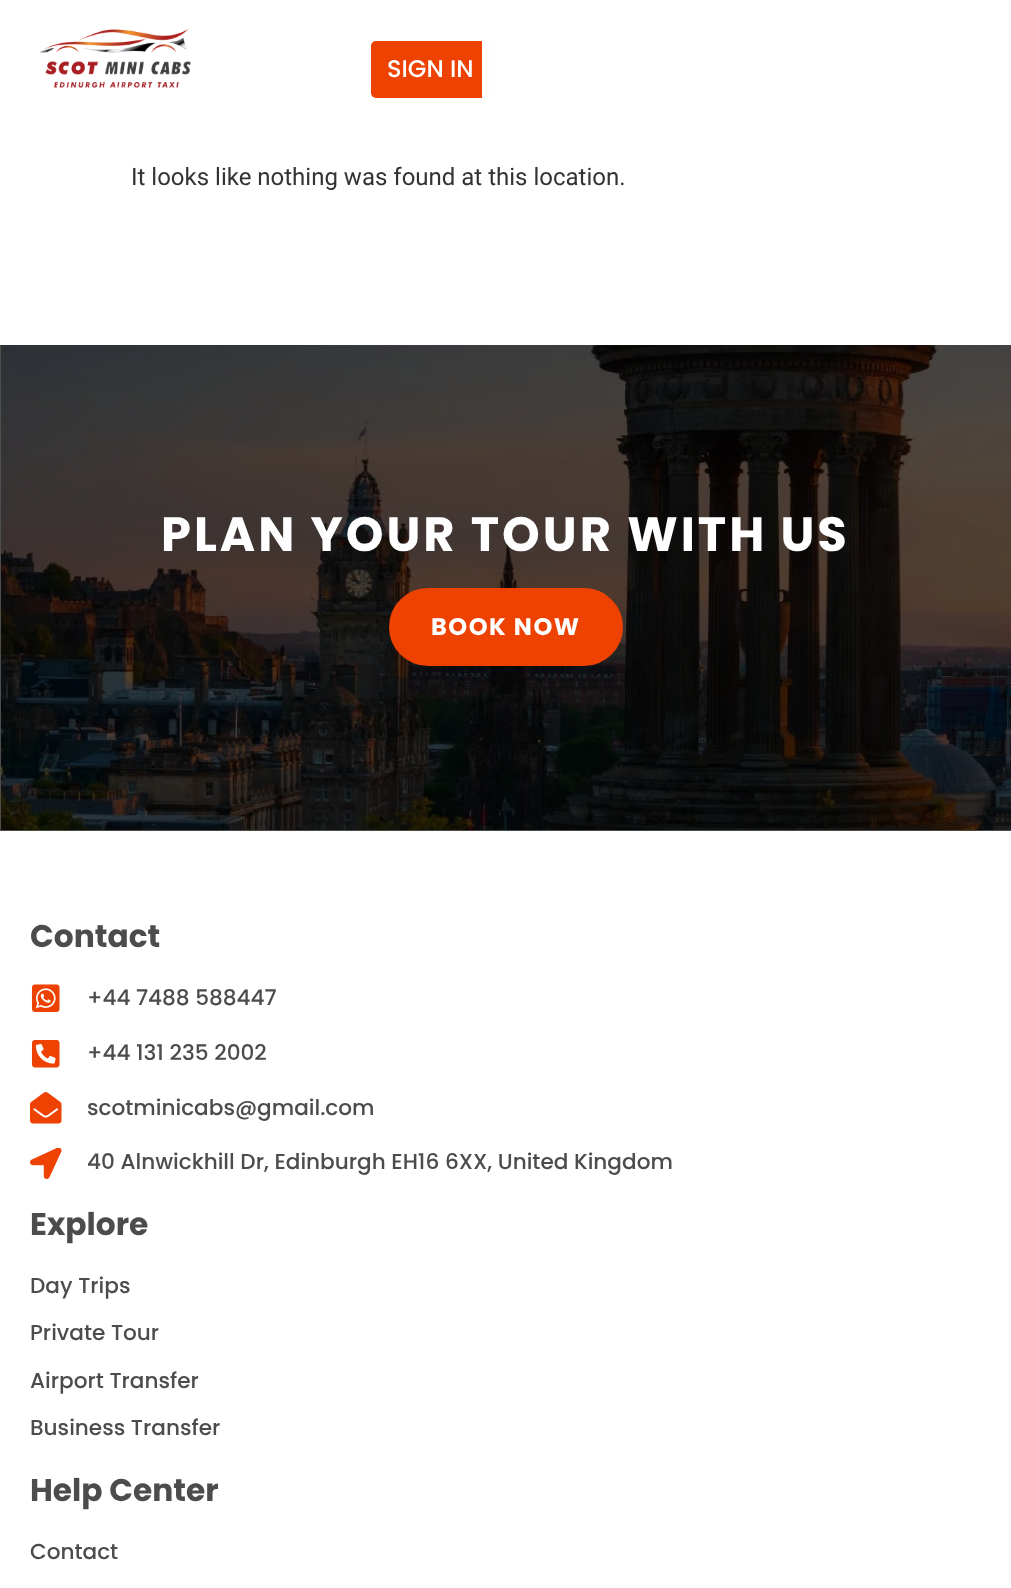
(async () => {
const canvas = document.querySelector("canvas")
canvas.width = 1011
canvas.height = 1588
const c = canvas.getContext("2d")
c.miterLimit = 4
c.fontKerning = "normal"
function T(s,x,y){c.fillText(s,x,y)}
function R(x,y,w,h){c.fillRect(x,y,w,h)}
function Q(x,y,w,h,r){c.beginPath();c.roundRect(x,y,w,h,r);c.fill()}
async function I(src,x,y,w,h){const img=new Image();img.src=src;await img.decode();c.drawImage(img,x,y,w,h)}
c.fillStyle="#fff"
R(0,0,1011,1588)
await I("1.png",39,28,152,60)
c.fillStyle="#ee4203"
Q(371,41,120,57,5)
c.font="500 24px Poppins"
c.fillStyle="#fff"
T("SIGN IN",387,77)
c.fillStyle="#fffdfd"
R(482,41,9,57)
c.font="24px Roboto"
c.fillStyle="#333"
T("It looks like nothing was found at this location.",131,185)
await I("2.png",0,345,1011,486)
c.letterSpacing="3px"
c.font="bold 48px Poppins"
c.fillStyle="#fff"
T("PLAN YOUR TOUR WITH US",161,551)
c.fillStyle="#ee4203"
c.beginPath()
c.roundRect(391.5,590.5,229,73,36.5)
c.fill()
c.strokeStyle="#ee4203"
c.lineWidth=5
c.stroke()
c.letterSpacing="1.5px"
c.font="bold 24px Poppins"
c.fillStyle="#fff"
T("BOOK NOW",431,635)
c.letterSpacing="0px"
c.font="bold 31.25px Poppins"
c.fillStyle="#4c4c4c"
T("Contact",30,947)
await I("3.png",31,984,29,28)
c.font="500 21.6px Poppins"
T("+44 7488 588447",87,1005)
await I("4.png",31,1040,29,28)
T("+44 131 235 2002",87,1060)
await I("5.png",30,1092,32,32)
T("scotminicabs@gmail.com",87,1115)
await I("6.png",30,1148,32,31)
T("40 Alnwickhill Dr, Edinburgh EH16 6XX, United Kingdom",87,1169)
c.font="bold 31.25px Poppins"
T("Explore",30,1235)
c.font="500 21.6px Poppins"
T("Day Trips",30,1293)
T("Private Tour",30,1340)
T("Airport Transfer",30,1388)
T("Business Transfer",30,1435)
c.font="bold 31.25px Poppins"
T("Help Center",30,1501)
c.font="500 21.6px Poppins"
T("Contact",30,1559)
})()
